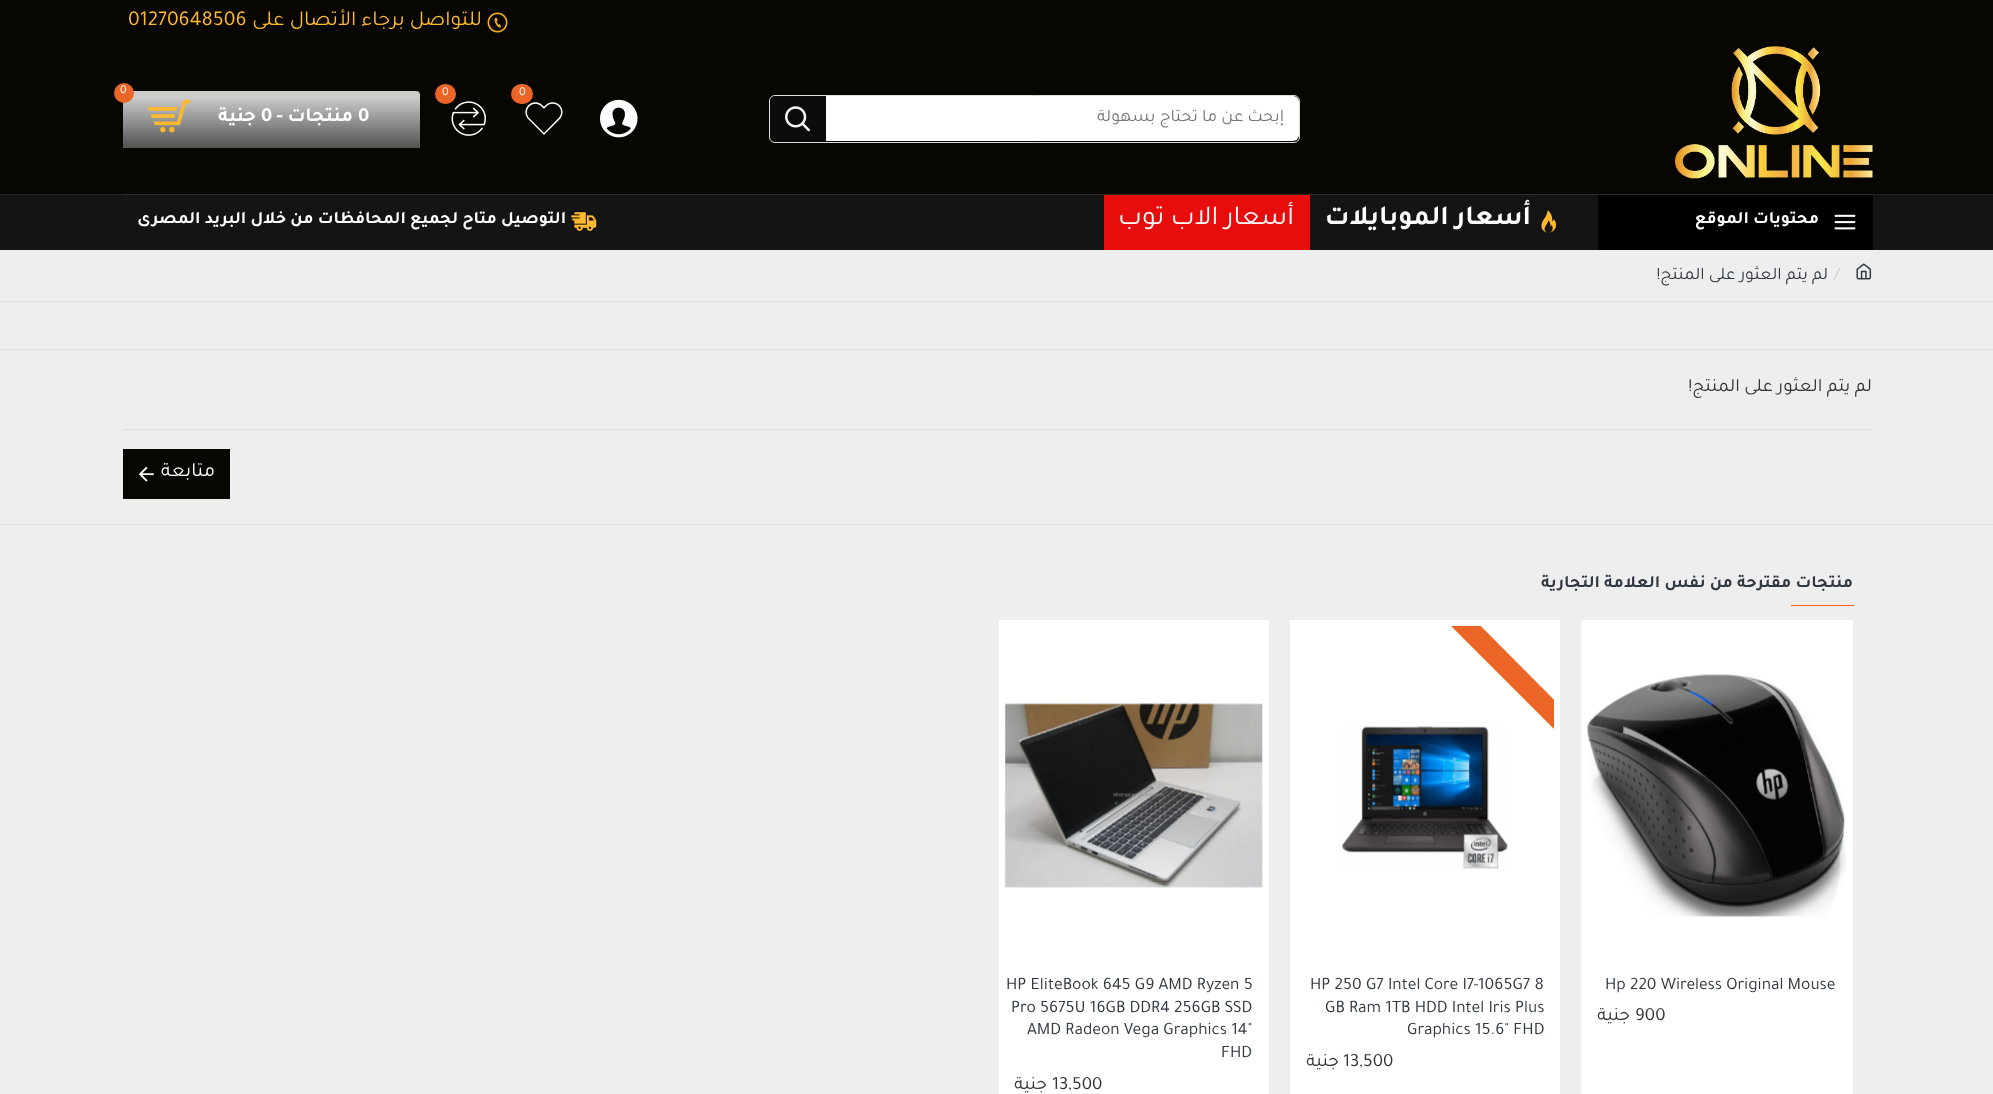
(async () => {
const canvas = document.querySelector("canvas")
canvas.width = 1993
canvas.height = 1094
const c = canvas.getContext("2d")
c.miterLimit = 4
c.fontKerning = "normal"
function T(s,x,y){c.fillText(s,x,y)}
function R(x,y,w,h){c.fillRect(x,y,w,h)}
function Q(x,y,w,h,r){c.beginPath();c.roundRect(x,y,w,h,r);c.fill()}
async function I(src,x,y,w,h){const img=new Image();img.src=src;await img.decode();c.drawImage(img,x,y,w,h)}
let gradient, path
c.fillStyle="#eee"
R(0,0,1993,1094)
c.fillStyle="#070600"
R(0,0,1993,194)
await I("1.png",487,12,21,21)
c.direction="rtl"
c.font="21.25px Tajawal"
c.fillStyle="#ffb92c"
T("للتواصل برجاء الأتصال على",482,25)
c.direction="ltr"
T("01270648506",128,25)
await I("2.png",1675,46,198,133)
c.beginPath()
c.roundRect(769.5,95.5,530,47,5.5)
c.strokeStyle="#ddd"
c.stroke()
c.fillStyle="#fff"
c.beginPath()
c.roundRect(826,96,473,45,[0,6,6,0])
c.fill()
c.direction="rtl"
c.font="17.5px Tajawal"
c.fillStyle="#757575"
T("إبحث عن ما تحتاج بسهولة",1284,121)
c.fillStyle="#0c0c0c"
c.beginPath()
c.roundRect(770,96,56,45,[6,0,0,6])
c.fill()
await I("3.png",785,106,25,26)
await I("4.png",525,102,38,33)
c.fillStyle="#eb6626"
Q(511,84,22,20,10)
c.direction="ltr"
c.font="12px Tajawal"
c.fillStyle="#fff"
T("0",519,95)
await I("5.png",451,101,35,35)
c.fillStyle="#eb6626"
Q(435,84,21,20,10)
c.fillStyle="#fff"
T("0",442,95)
await I("6.png",600,99,38,39)
c.fillStyle="#ccc"
c.beginPath()
c.roundRect(123,91,297,57,[0,4,0,0])
c.fill()
gradient = c.createLinearGradient(271,148,271,91)
gradient.addColorStop(0,"#00000099")
gradient.addColorStop(.9,"#00000000")
c.fillStyle = gradient
R(123,99,297,49)
c.fillStyle="#eb6626"
c.beginPath()
c.arc(124,93,10,0,7)
c.fill()
c.fillStyle="#fff"
T("0",120,93)
c.font="bold 20px Tajawal"
T("0",358,121)
c.direction="rtl"
T("منتجات -",353,121)
c.direction="ltr"
T("0",261,121)
c.direction="rtl"
T("جنية",256,121)
await I("7.png",147,99,44,34)
c.fillStyle="#1f201f"
R(0,194,1993,1)
c.fillStyle="#2b2c2b"
R(123,194,1750,1)
c.fillStyle="#131413"
R(0,195,1993,55)
c.fillStyle="#000"
R(1598,195,275,55)
await I("8.png",1834,214,22,16)
c.font="bold 17.5px Tajawal"
c.fillStyle="#fff"
T("محتويات الموقع",1819,223)
await I("9.png",1541,210,16,23)
c.font="bold 27.5px Tajawal"
T("أسعار الموبايلات",1531,224)
c.fillStyle="#e70d0d"
R(1104,195,206,55)
c.font="27.5px Tajawal"
c.fillStyle="#fff"
T("أسعار الاب توب",1294,224)
await I("10.png",571,212,26,19)
c.font="bold 17.5px Tajawal"
T("التوصيل متاح لجميع المحافظات من خلال البريد المصرى",566,223)
await I("11.png",1856,263,16,17)
c.direction="ltr"
c.font="17.5px Tajawal"
c.fillStyle="#ccc"
T("/",1834,279)
c.direction="rtl"
c.fillStyle="#303841"
T("لم يتم العثور على المنتج!",1828,279)
c.fillStyle="#ddd"
R(0,301,1993,1)
R(0,349,1993,1)
c.font="18.75px Tajawal"
c.fillStyle="#333"
T("لم يتم العثور على المنتج!",1872,391)
c.fillStyle="#ddd"
R(123,429,1750,1)
c.fillStyle="#070600"
R(123,449,107,50)
c.font="20px Tajawal"
c.fillStyle="#fff"
T("متابعة",215,476)
await I("12.png",138,466,16,16)
c.fillStyle="#ddd"
R(0,524,1993,1)
c.font="bold 17.5px Tajawal"
c.fillStyle="#303841"
T("منتجات مقترحة من نفس العلامة التجارية",1853,587)
c.fillStyle="#eb6626"
R(1791,605,63,1)
c.fillStyle="#fff"
R(1581,620,272,474)
await I("13.png",1587,674,259,243)
c.direction="ltr"
c.font="17.5px Tajawal"
c.fillStyle="#303841"
T("Hp 220 Wireless Original Mouse",1605,989)
c.font="18.75px Tajawal"
c.fillStyle="#333"
T("900",1635,1020)
c.direction="rtl"
T("جنية",1630,1020)
c.fillStyle="#fff"
R(1290,620,270,474)
await I("14.png",1342,726,166,143)
c.save()
c.beginPath()
c.rect(1296,626,258,339)
c.clip()
c.fillStyle="#eb6626"
path = new Path2D("M1425 570l185 186l-14 15l-186-186z")
c.fill(path)
c.restore()
c.font="12px Tajawal"
c.save()
c.translate(1539,655)
c.rotate(45 * Math.PI / 180)
c.fillText("غير متوفر",0,0)
c.restore()
c.direction="ltr"
c.font="17.5px Tajawal"
c.fillStyle="#303841"
T("HP 250 G7 Intel Core I7-1065G7 8",1310,989)
T("GB Ram 1TB HDD Intel Iris Plus",1325,1012)
T("Graphics 15.6\" FHD",1407,1034)
c.font="18.75px Tajawal"
c.fillStyle="#333"
T("13,500",1343,1066)
c.direction="rtl"
T("جنية",1339,1066)
c.fillStyle="#fff"
R(999,620,270,474)
await I("15.png",1004,703,259,185)
c.direction="ltr"
c.font="17.5px Tajawal"
c.fillStyle="#303841"
T("HP EliteBook 645 G9 AMD Ryzen 5",1006,989)
T("Pro 5675U 16GB DDR4 256GB SSD",1011,1012)
T("AMD Radeon Vega Graphics 14\"",1027,1034)
T("FHD",1221,1057)
c.font="18.75px Tajawal"
c.fillStyle="#333"
T("13,500",1052,1089)
c.direction="rtl"
T("جنية",1047,1089)
})()
